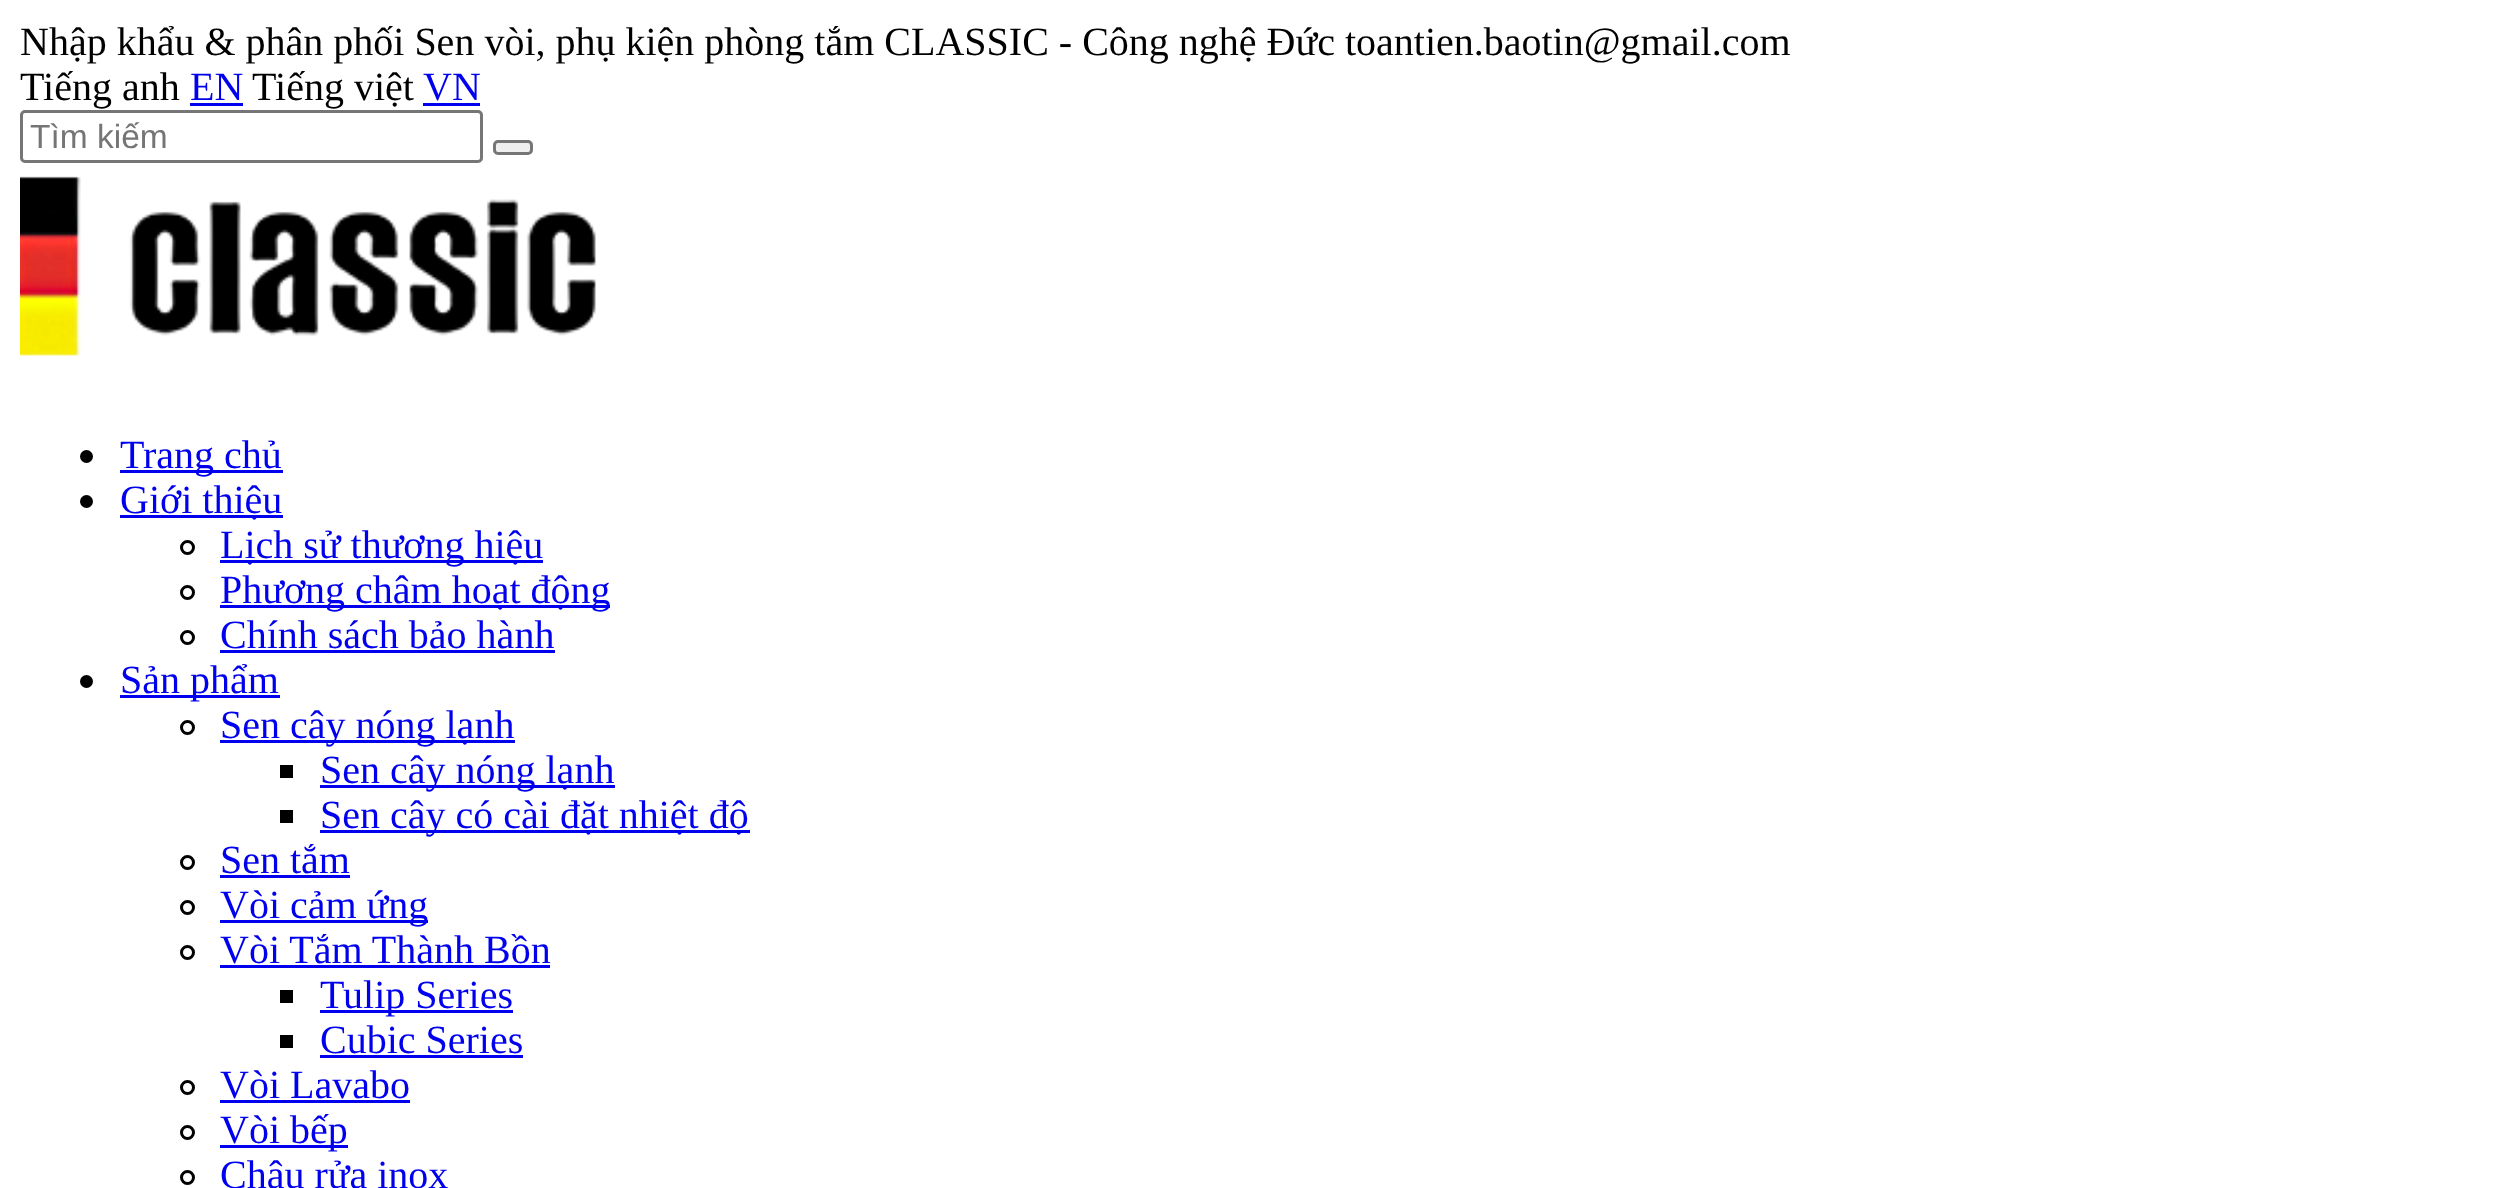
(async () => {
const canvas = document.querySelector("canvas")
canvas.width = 2512
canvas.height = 1188
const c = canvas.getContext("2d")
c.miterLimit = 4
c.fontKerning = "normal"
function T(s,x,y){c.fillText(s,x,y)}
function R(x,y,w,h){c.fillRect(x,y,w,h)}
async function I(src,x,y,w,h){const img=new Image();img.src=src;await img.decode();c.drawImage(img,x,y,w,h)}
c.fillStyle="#fff"
R(0,0,2512,1188)
c.font="40px Liberation Serif"
c.fillStyle="#000"
T("Nhập khẩu & phân phối Sen vòi, phụ kiện phòng tắm CLASSIC - Công nghệ Đức toantien.baotin@gmail.com",20,55)
T("Tiếng anh",20,100)
c.fillStyle="#00e"
T("EN",190,100)
R(190,103,53,3)
c.fillStyle="#000"
T("Tiếng việt",252,100)
c.fillStyle="#00e"
T("VN",423,100)
R(423,103,57,3)
c.beginPath()
c.roundRect(21.5,111.5,460,50,3.5)
c.strokeStyle="#767676"
c.lineWidth=3
c.stroke()
c.font="33.5px Liberation Sans"
c.fillStyle="#757575"
T("Tìm kiếm",30,148)
c.fillStyle="#efefef"
c.beginPath()
c.roundRect(494.5,141.5,37,12,3.5)
c.fill()
c.stroke()
await I("1.png",20,176,576,180)
c.fillStyle="#000"
c.beginPath()
c.arc(86.5,456.5,6.5,0,7)
c.fill()
c.fillStyle="#00e"
R(120,470,163,3)
c.font="40px Liberation Serif"
T("Trang chủ",120,468)
c.fillStyle="#000"
c.beginPath()
c.arc(86.5,501.5,6.5,0,7)
c.fill()
c.fillStyle="#00e"
R(120,515,163,3)
T("Giới thiệu",120,513)
c.beginPath()
c.arc(187.5,547.5,6,0,7)
c.strokeStyle="#000"
c.stroke()
R(220,560,323,3)
T("Lịch sử thương hiệu",220,558)
c.beginPath()
c.arc(187.5,592.5,6,0,7)
c.stroke()
R(220,605,390,3)
T("Phương châm hoạt động",220,603)
c.beginPath()
c.arc(187.5,637.5,6,0,7)
c.stroke()
T("Chính sách bảo hành",220,648)
R(220,650,335,3)
c.fillStyle="#000"
c.beginPath()
c.arc(86.5,681.5,6.5,0,7)
c.fill()
c.fillStyle="#00e"
R(120,695,160,3)
T("Sản phẩm",120,693)
c.beginPath()
c.arc(187.5,727.5,6,0,7)
c.stroke()
R(220,740,295,3)
T("Sen cây nóng lạnh",220,738)
c.fillStyle="#000"
R(280,765,13,13)
c.fillStyle="#00e"
R(320,785,295,3)
T("Sen cây nóng lạnh",320,783)
c.fillStyle="#000"
R(280,810,13,13)
c.fillStyle="#00e"
R(320,830,430,3)
T("Sen cây có cài đặt nhiệt độ",320,828)
c.beginPath()
c.arc(187.5,862.5,6,0,7)
c.stroke()
T("Sen tắm",220,873)
R(220,875,130,3)
c.beginPath()
c.arc(187.5,907.5,6,0,7)
c.stroke()
R(220,920,208,3)
T("Vòi cảm ứng",220,918)
c.beginPath()
c.arc(187.5,952.5,6,0,7)
c.stroke()
T("Vòi Tắm Thành Bồn",220,963)
R(220,965,330,3)
c.fillStyle="#000"
R(280,990,13,13)
c.fillStyle="#00e"
R(320,1010,193,3)
T("Tulip Series",320,1008)
c.fillStyle="#000"
R(280,1035,13,13)
c.fillStyle="#00e"
T("Cubic Series",320,1053)
R(320,1055,203,3)
c.beginPath()
c.arc(187.5,1087.5,6,0,7)
c.stroke()
T("Vòi Lavabo",220,1098)
R(220,1100,190,3)
c.beginPath()
c.arc(187.5,1132.5,6,0,7)
c.stroke()
R(220,1145,128,3)
T("Vòi bếp",220,1143)
c.beginPath()
c.arc(187.5,1177.5,6,0,7)
c.stroke()
T("Chậu rửa inox",220,1188)
})()
